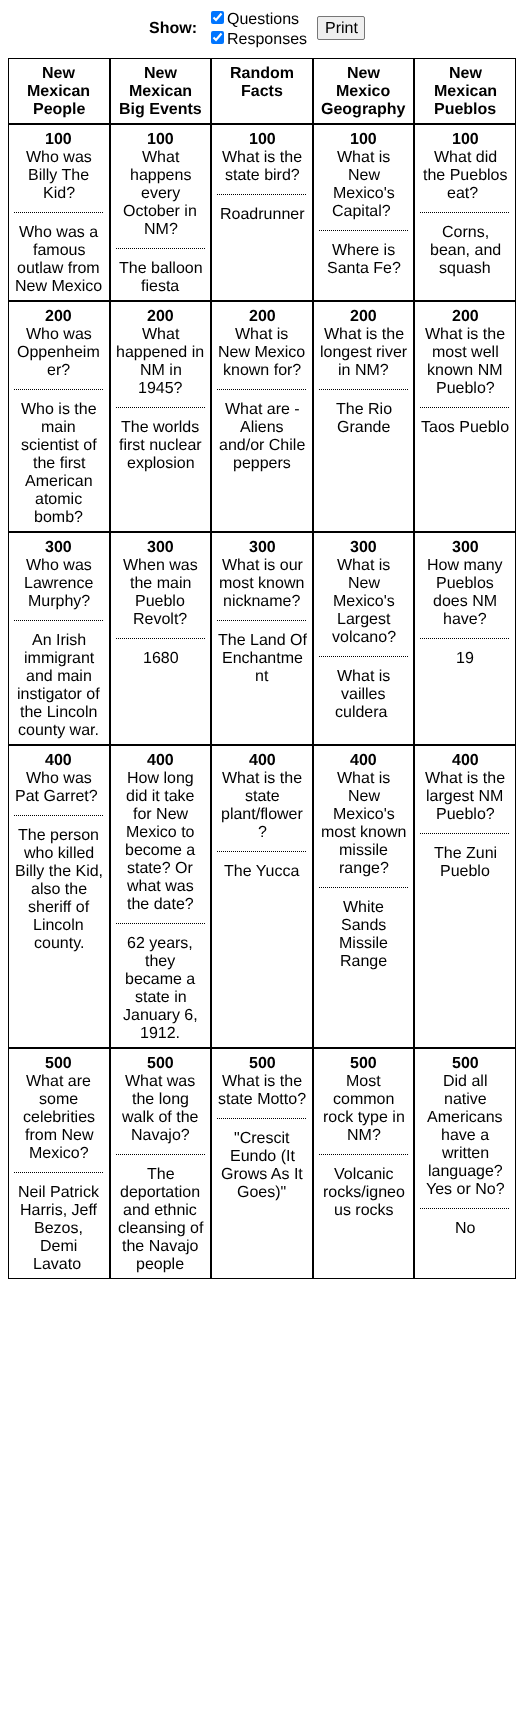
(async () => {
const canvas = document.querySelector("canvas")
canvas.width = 524
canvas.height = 1726
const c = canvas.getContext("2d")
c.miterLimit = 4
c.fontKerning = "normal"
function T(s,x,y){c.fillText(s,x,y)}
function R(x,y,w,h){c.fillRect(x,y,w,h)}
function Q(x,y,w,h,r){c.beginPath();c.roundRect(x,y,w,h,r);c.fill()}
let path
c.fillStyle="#fff"
R(0,0,524,1726)
c.font="bold 16px Liberation Sans"
c.fillStyle="#000"
T("Show:",149,33)
c.fillStyle="#0075ff"
Q(211,11,13,13,2)
path = new Path2D("M213.5 17.5l2.5 2.5l5.5-6.5")
c.strokeStyle="#fff"
c.lineWidth=2.1
c.stroke(path)
c.font="16px Liberation Sans"
c.fillStyle="#000"
T("Questions",227,24)
c.fillStyle="#0075ff"
Q(211,31,13,13,2)
path = new Path2D("M213.5 37.5l2.5 2.5l5.5-6.5")
c.stroke(path)
c.fillStyle="#000"
T("Responses",227,44)
c.fillStyle="#efefef"
c.beginPath()
c.roundRect(317.5,16.5,47,23,1.5)
c.fill()
c.strokeStyle="#767676"
c.lineWidth=1
c.stroke()
c.fillStyle="#000"
T("Print",325,33)
c.strokeStyle="#000"
c.strokeRect(8.5,58.5,101,65)
c.font="bold 16px Liberation Sans"
T("New",42,78)
T("Mexican",27,96)
T("People",33,114)
c.strokeRect(110.5,58.5,100,65)
T("New",144,78)
T("Mexican",129,96)
T("Big Events",119,114)
c.strokeRect(211.5,58.5,101,65)
T("Random",230,78)
T("Facts",241,96)
c.strokeRect(313.5,58.5,100,65)
T("New",347,78)
T("Mexico",336,96)
T("Geography",321,114)
c.strokeRect(414.5,58.5,101,65)
T("New",449,78)
T("Mexican",434,96)
T("Pueblos",434,114)
c.strokeRect(8.5,124.5,101,176)
T("100",45,144)
c.font="16px Liberation Sans"
T("Who was",26,162)
T("Billy The",28,180)
T("Kid?",43,198)
path = new Path2D("M14 212.5h90")
c.setLineDash([1,1])
c.stroke(path)
T("Who was a",19,237)
T("famous",33,255)
T("outlaw from",17,273)
T("New Mexico",15,291)
c.setLineDash([])
c.strokeRect(110.5,124.5,100,176)
c.font="bold 16px Liberation Sans"
T("100",147,144)
c.font="16px Liberation Sans"
T("What",142,162)
T("happens",130,180)
T("every",141,198)
T("October in",123,216)
T("NM?",144,234)
path = new Path2D("M116 248.5h89")
c.setLineDash([1,1])
c.stroke(path)
T("The balloon",119,273)
T("fiesta",141,291)
c.setLineDash([])
c.strokeRect(211.5,124.5,101,176)
c.font="bold 16px Liberation Sans"
T("100",249,144)
c.font="16px Liberation Sans"
T("What is the",222,162)
T("state bird?",225,180)
path = new Path2D("M217 194.5h90")
c.setLineDash([1,1])
c.stroke(path)
T("Roadrunner",220,219)
c.setLineDash([])
c.strokeRect(313.5,124.5,100,176)
c.font="bold 16px Liberation Sans"
T("100",350,144)
c.font="16px Liberation Sans"
T("What is",337,162)
T("New",348,180)
T("Mexico's",333,198)
T("Capital?",332,216)
path = new Path2D("M319 230.5h89")
c.setLineDash([1,1])
c.stroke(path)
T("Where is",332,255)
T("Santa Fe?",327,273)
c.setLineDash([])
c.strokeRect(414.5,124.5,101,176)
c.font="bold 16px Liberation Sans"
T("100",452,144)
c.font="16px Liberation Sans"
T("What did",434,162)
T("the Pueblos",423,180)
T("eat?",447,198)
path = new Path2D("M420 212.5h90")
c.setLineDash([1,1])
c.stroke(path)
T("Corns,",442,237)
T("bean, and",430,255)
T("squash",439,273)
c.setLineDash([])
c.strokeRect(8.5,301.5,101,230)
c.font="bold 16px Liberation Sans"
T("200",45,321)
c.font="16px Liberation Sans"
T("Who was",26,339)
T("Oppenheim",17,357)
T("er?",47,375)
path = new Path2D("M14 389.5h90")
c.setLineDash([1,1])
c.stroke(path)
T("Who is the",21,414)
T("main",41,432)
T("scientist of",21,450)
T("the first",33,468)
T("American",25,486)
T("atomic",35,504)
T("bomb?",34,522)
c.setLineDash([])
c.strokeRect(110.5,301.5,100,230)
c.font="bold 16px Liberation Sans"
T("200",147,321)
c.font="16px Liberation Sans"
T("What",142,339)
T("happened in",116,357)
T("NM in",140,375)
T("1945?",138,393)
path = new Path2D("M116 407.5h89")
c.setLineDash([1,1])
c.stroke(path)
T("The worlds",121,432)
T("first nuclear",119,450)
T("explosion",127,468)
c.setLineDash([])
c.strokeRect(211.5,301.5,101,230)
c.font="bold 16px Liberation Sans"
T("200",249,321)
c.font="16px Liberation Sans"
T("What is",235,339)
T("New Mexico",218,357)
T("known for?",223,375)
path = new Path2D("M217 389.5h90")
c.setLineDash([1,1])
c.stroke(path)
T("What are -",225,414)
T("Aliens",240,432)
T("and/or Chile",219,450)
T("peppers",233,468)
c.setLineDash([])
c.strokeRect(313.5,301.5,100,230)
c.font="bold 16px Liberation Sans"
T("200",350,321)
c.font="16px Liberation Sans"
T("What is the",324,339)
T("longest river",320,357)
T("in NM?",338,375)
path = new Path2D("M319 389.5h89")
c.setLineDash([1,1])
c.stroke(path)
T("The Rio",336,414)
T("Grande",337,432)
c.setLineDash([])
c.strokeRect(414.5,301.5,101,230)
c.font="bold 16px Liberation Sans"
T("200",452,321)
c.font="16px Liberation Sans"
T("What is the",425,339)
T("most well",432,357)
T("known NM",427,375)
T("Pueblo?",436,393)
path = new Path2D("M420 407.5h90")
c.setLineDash([1,1])
c.stroke(path)
T("Taos Pueblo",421,432)
c.setLineDash([])
c.strokeRect(8.5,532.5,101,212)
c.font="bold 16px Liberation Sans"
T("300",45,552)
c.font="16px Liberation Sans"
T("Who was",26,570)
T("Lawrence",24,588)
T("Murphy?",28,606)
path = new Path2D("M14 620.5h90")
c.setLineDash([1,1])
c.stroke(path)
T("An Irish",32,645)
T("immigrant",24,663)
T("and main",26,681)
T("instigator of",17,699)
T("the Lincoln",20,717)
T("county war.",18,735)
c.setLineDash([])
c.strokeRect(110.5,532.5,100,212)
c.font="bold 16px Liberation Sans"
T("300",147,552)
c.font="16px Liberation Sans"
T("When was",123,570)
T("the main",130,588)
T("Pueblo",135,606)
T("Revolt?",133,624)
path = new Path2D("M116 638.5h89")
c.setLineDash([1,1])
c.stroke(path)
T("1680",143,663)
c.setLineDash([])
c.strokeRect(211.5,532.5,101,212)
c.font="bold 16px Liberation Sans"
T("300",249,552)
c.font="16px Liberation Sans"
T("What is our",222,570)
T("most known",219,588)
T("nickname?",223,606)
path = new Path2D("M217 620.5h90")
c.setLineDash([1,1])
c.stroke(path)
T("The Land Of",218,645)
T("Enchantme",222,663)
T("nt",255,681)
c.setLineDash([])
c.strokeRect(313.5,532.5,100,212)
c.font="bold 16px Liberation Sans"
T("300",350,552)
c.font="16px Liberation Sans"
T("What is",337,570)
T("New",348,588)
T("Mexico's",333,606)
T("Largest",337,624)
T("volcano?",332,642)
path = new Path2D("M319 656.5h89")
c.setLineDash([1,1])
c.stroke(path)
T("What is",337,681)
T("vailles",341,699)
T("culdera",335,717)
c.setLineDash([])
c.strokeRect(414.5,532.5,101,212)
c.font="bold 16px Liberation Sans"
T("300",452,552)
c.font="16px Liberation Sans"
T("How many",427,570)
T("Pueblos",436,588)
T("does NM",433,606)
T("have?",443,624)
path = new Path2D("M420 638.5h90")
c.setLineDash([1,1])
c.stroke(path)
T("19",456,663)
c.setLineDash([])
c.strokeRect(8.5,745.5,101,302)
c.font="bold 16px Liberation Sans"
T("400",45,765)
c.font="16px Liberation Sans"
T("Who was",26,783)
T("Pat Garret?",15,801)
path = new Path2D("M14 815.5h90")
c.setLineDash([1,1])
c.stroke(path)
T("The person",18,840)
T("who killed",24,858)
T("Billy the Kid,",15,876)
T("also the",31,894)
T("sheriff of",28,912)
T("Lincoln",33,930)
T("county.",34,948)
c.setLineDash([])
c.strokeRect(110.5,745.5,100,302)
c.font="bold 16px Liberation Sans"
T("400",147,765)
c.font="16px Liberation Sans"
T("How long",127,783)
T("did it take",126,801)
T("for New",133,819)
T("Mexico to",126,837)
T("become a",125,855)
T("state? Or",127,873)
T("what was",127,891)
T("the date?",127,909)
path = new Path2D("M116 923.5h89")
c.setLineDash([1,1])
c.stroke(path)
T("62 years,",127,948)
T("they",145,966)
T("became a",125,984)
T("state in",135,1002)
T("January 6,",123,1020)
T("1912.",140,1038)
c.setLineDash([])
c.strokeRect(211.5,745.5,101,302)
c.font="bold 16px Liberation Sans"
T("400",249,765)
c.font="16px Liberation Sans"
T("What is the",222,783)
T("state",245,801)
T("plant/flower",221,819)
T("?",258,837)
path = new Path2D("M217 851.5h90")
c.setLineDash([1,1])
c.stroke(path)
T("The Yucca",224,876)
c.setLineDash([])
c.strokeRect(313.5,745.5,100,302)
c.font="bold 16px Liberation Sans"
T("400",350,765)
c.font="16px Liberation Sans"
T("What is",337,783)
T("New",348,801)
T("Mexico's",333,819)
T("most known",321,837)
T("missile",339,855)
T("range?",339,873)
path = new Path2D("M319 887.5h89")
c.setLineDash([1,1])
c.stroke(path)
T("White",343,912)
T("Sands",341,930)
T("Missile",339,948)
T("Range",340,966)
c.setLineDash([])
c.strokeRect(414.5,745.5,101,302)
c.font="bold 16px Liberation Sans"
T("400",452,765)
c.font="16px Liberation Sans"
T("What is the",425,783)
T("largest NM",426,801)
T("Pueblo?",436,819)
path = new Path2D("M420 833.5h90")
c.setLineDash([1,1])
c.stroke(path)
T("The Zuni",434,858)
T("Pueblo",440,876)
c.setLineDash([])
c.strokeRect(8.5,1048.5,101,230)
c.font="bold 16px Liberation Sans"
T("500",45,1068)
c.font="16px Liberation Sans"
T("What are",26,1086)
T("some",39,1104)
T("celebrities",23,1122)
T("from New",25,1140)
T("Mexico?",29,1158)
path = new Path2D("M14 1172.5h90")
c.setLineDash([1,1])
c.stroke(path)
T("Neil Patrick",18,1197)
T("Harris, Jeff",20,1215)
T("Bezos,",34,1233)
T("Demi",40,1251)
T("Lavato",33,1269)
c.setLineDash([])
c.strokeRect(110.5,1048.5,100,230)
c.font="bold 16px Liberation Sans"
T("500",147,1068)
c.font="16px Liberation Sans"
T("What was",125,1086)
T("the long",132,1104)
T("walk of the",122,1122)
T("Navajo?",131,1140)
path = new Path2D("M116 1154.5h89")
c.setLineDash([1,1])
c.stroke(path)
T("The",147,1179)
T("deportation",120,1197)
T("and ethnic",123,1215)
T("cleansing of",118,1233)
T("the Navajo",122,1251)
T("people",136,1269)
c.setLineDash([])
c.strokeRect(211.5,1048.5,101,230)
c.font="bold 16px Liberation Sans"
T("500",249,1068)
c.font="16px Liberation Sans"
T("What is the",222,1086)
T("state Motto?",218,1104)
path = new Path2D("M217 1118.5h90")
c.setLineDash([1,1])
c.stroke(path)
T("\"Crescit",234,1143)
T("Eundo (It",230,1161)
T("Grows As It",221,1179)
T("Goes)\"",237,1197)
c.setLineDash([])
c.strokeRect(313.5,1048.5,100,230)
c.font="bold 16px Liberation Sans"
T("500",350,1068)
c.font="16px Liberation Sans"
T("Most",346,1086)
T("common",333,1104)
T("rock type in",323,1122)
T("NM?",347,1140)
path = new Path2D("M319 1154.5h89")
c.setLineDash([1,1])
c.stroke(path)
T("Volcanic",334,1179)
T("rocks/igneo",323,1197)
T("us rocks",334,1215)
c.setLineDash([])
c.strokeRect(414.5,1048.5,101,230)
c.font="bold 16px Liberation Sans"
T("500",452,1068)
c.font="16px Liberation Sans"
T("Did all",443,1086)
T("native",444,1104)
T("Americans",427,1122)
T("have a",441,1140)
T("written",442,1158)
T("language?",428,1176)
T("Yes or No?",426,1194)
path = new Path2D("M420 1208.5h90")
c.setLineDash([1,1])
c.stroke(path)
T("No",455,1233)
})()
